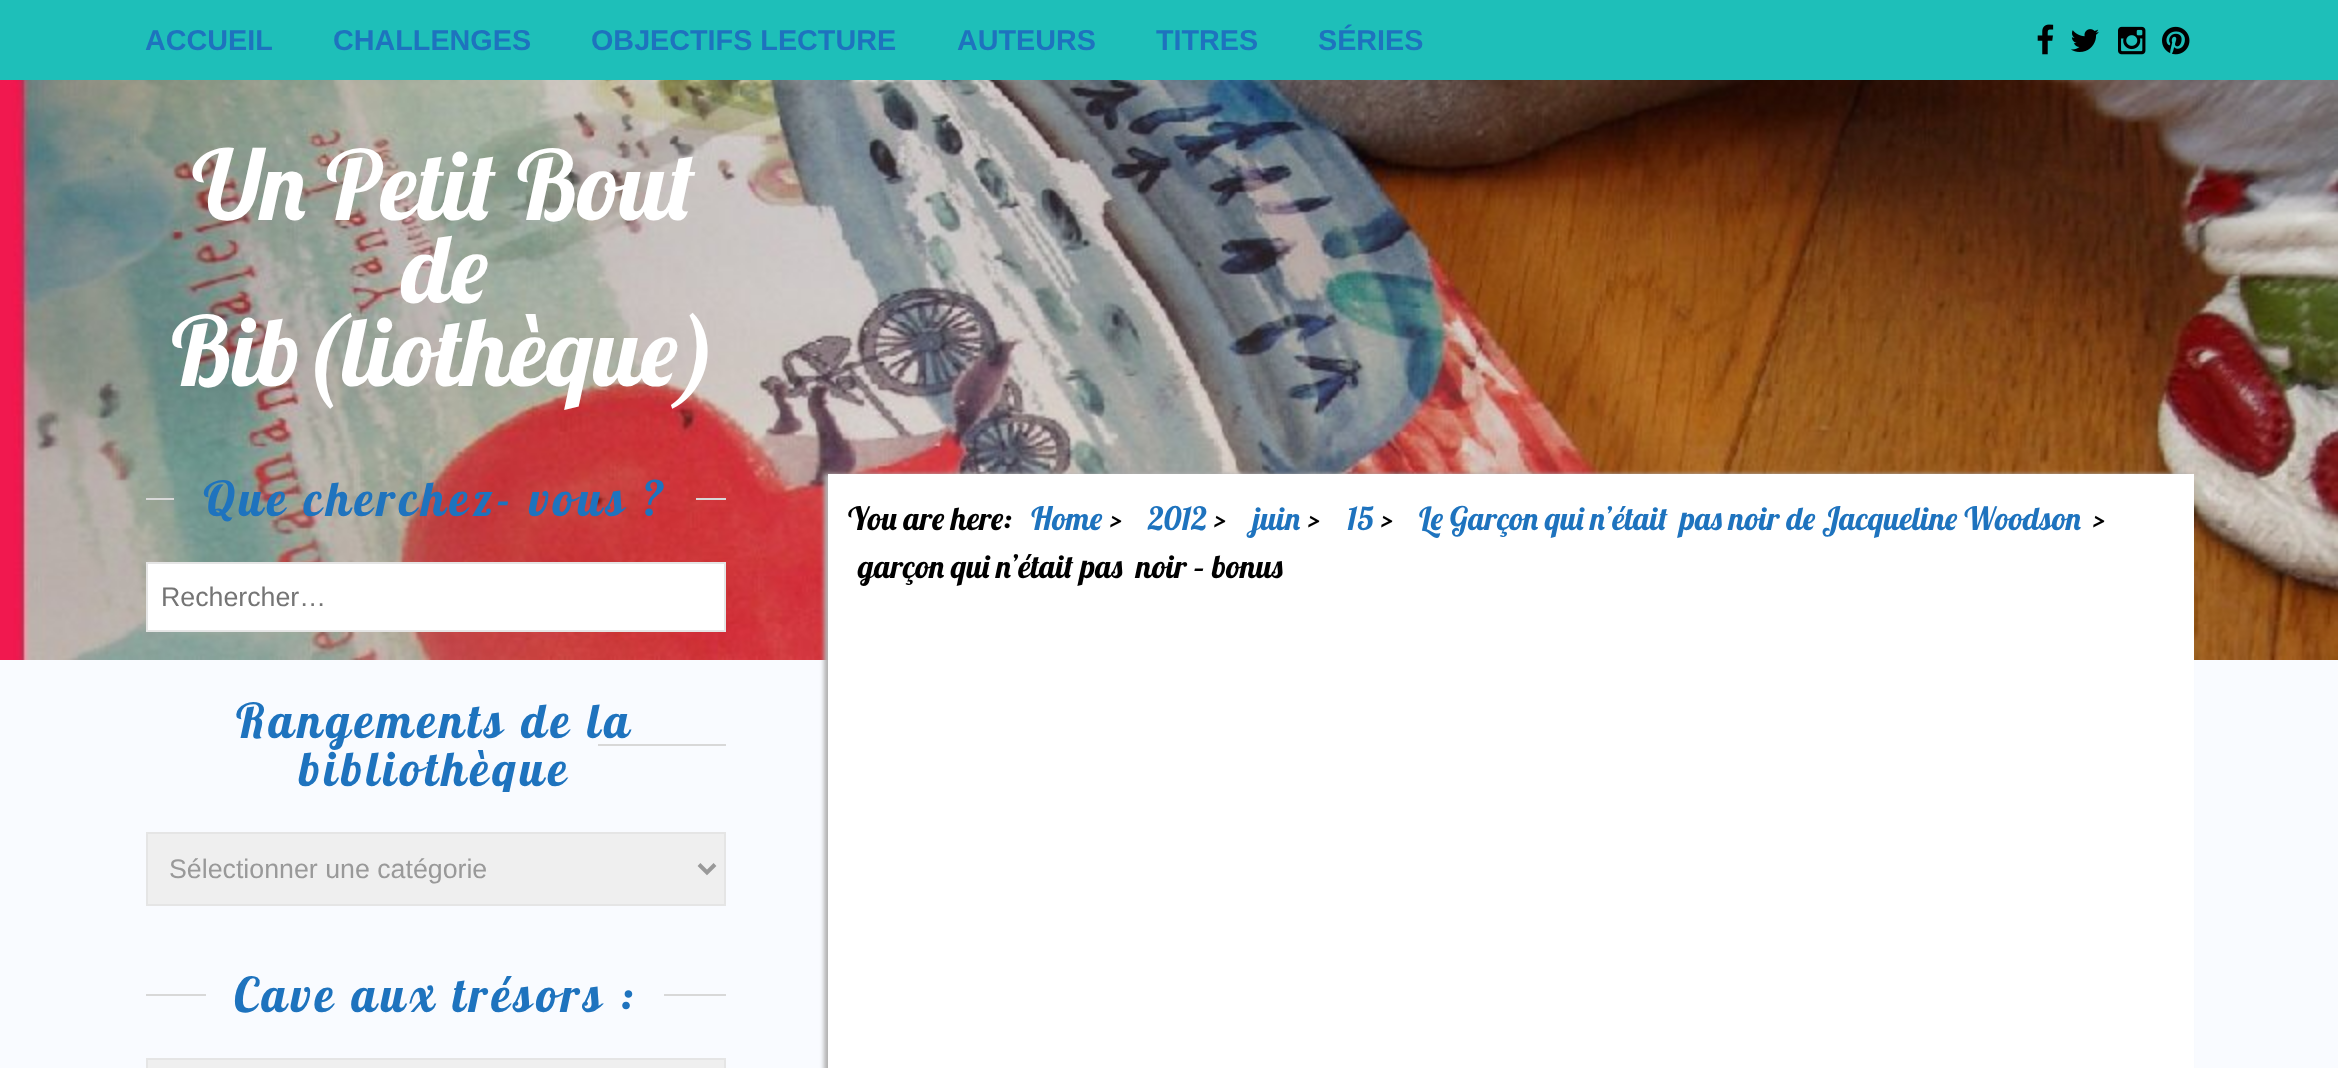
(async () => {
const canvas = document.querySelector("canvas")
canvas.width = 2338
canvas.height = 1068
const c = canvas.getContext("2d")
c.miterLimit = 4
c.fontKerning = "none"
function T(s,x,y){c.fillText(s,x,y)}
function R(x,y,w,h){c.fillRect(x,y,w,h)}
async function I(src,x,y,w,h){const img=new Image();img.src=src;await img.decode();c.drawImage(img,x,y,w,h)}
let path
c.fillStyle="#f9fbff"
R(0,0,2338,1068)
await I("1.png",0,80,2338,580)
c.fillStyle="#1ebfb9"
R(0,0,2338,80)
c.font="bold 28.75px Liberation Sans"
c.fillStyle="#1e73be"
T("ACCUEIL",145,50)
T("CHALLENGES",333,50)
T("OBJECTIFS LECTURE",591,50)
T("AUTEURS",957,50)
T("TITRES",1156,50)
T("SÉRIES",1318,50)
await I("2.png",2037,24,17,31)
await I("3.png",2071,29,28,23)
await I("4.png",2118,26,28,29)
await I("5.png",2162,26,28,29)
c.font="96px Lobster"
c.fillStyle="#fff"
T("Un Petit Bout",193,220)
T("de",402,303)
T("Bib(liothèque)",171,386)
c.fillStyle="#d8d8d8"
R(146,498,28,2)
c.letterSpacing="4px"
c.font="48px Lobster"
c.fillStyle="#1e73be"
T("Que cherchez- vous ?",203,516)
c.fillStyle="#d8d8d8"
R(696,498,30,2)
c.fillStyle="#fff"
c.beginPath()
c.rect(147,563,578,68)
c.fill()
c.strokeStyle="#e5e5e5"
c.lineWidth=2
c.stroke()
c.letterSpacing="0px"
c.font="26.75px Liberation Sans"
c.fillStyle="#757575"
T("Rechercher…",161,606)
c.letterSpacing="4px"
c.font="48px Lobster"
c.fillStyle="#1e73be"
T("Rangements de la",236,738)
c.fillStyle="#d8d8d8"
R(598,744,128,2)
c.save()
c.beginPath()
c.rect(146,696,580,96)
c.clip()
c.fillStyle="#1e73be"
T("bibliothèque",299,786)
c.restore()
c.fillStyle="#efefef"
c.beginPath()
c.rect(147,833,578,72)
c.fill()
c.stroke()
path = new Path2D("M699 864.5l8 8l8-8")
c.strokeStyle="#999"
c.lineWidth=4
c.stroke(path)
c.letterSpacing="0px"
c.font="26.75px Liberation Sans"
c.fillStyle="#999"
T("Sélectionner une catégorie",169,878)
c.fillStyle="#d8d8d8"
R(146,994,60,2)
c.letterSpacing="4px"
c.font="48px Lobster"
c.fillStyle="#1e73be"
T("Cave aux trésors :",234,1012)
c.fillStyle="#d8d8d8"
R(664,994,62,2)
c.fillStyle="#efefef"
c.beginPath()
c.rect(147,1059,578,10)
c.fill()
c.strokeStyle="#e5e5e5"
c.lineWidth=2
c.stroke()
c.fillStyle="#b1b1b1"
c.filter="blur(2px)"
c.beginPath()
c.rect(824,474,1366,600)
c.fill()
c.filter="none"
c.fillStyle="#fff"
R(828,474,1366,594)
c.letterSpacing="0px"
c.font="32px Lobster"
c.fillStyle="#1e73be"
T("Home",1031,530)
c.fillStyle="#000"
T(">",1110,530)
c.fillStyle="#1e73be"
T("2012",1148,530)
c.fillStyle="#000"
T(">",1214,530)
c.fillStyle="#1e73be"
T("juin",1253,530)
c.fillStyle="#000"
T(">",1308,530)
c.fillStyle="#1e73be"
T("15",1347,530)
c.fillStyle="#000"
T(">",1381,530)
c.fillStyle="#1e73be"
T("Le Garçon qui n’était",1419,530)
T("pas noir de Jacqueline Woodson",1680,530)
c.fillStyle="#000"
T(">",2093,530)
T("garçon qui n’était pas",858,578)
T("noir – bonus",1136,578)
T("You are here:",848,530)
})()
